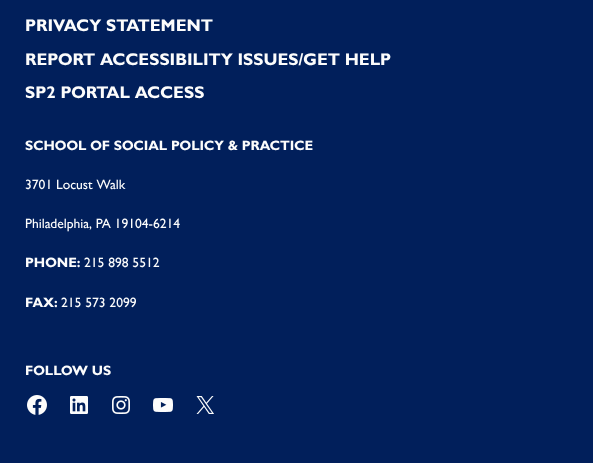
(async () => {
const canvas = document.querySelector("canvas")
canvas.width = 593
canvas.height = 463
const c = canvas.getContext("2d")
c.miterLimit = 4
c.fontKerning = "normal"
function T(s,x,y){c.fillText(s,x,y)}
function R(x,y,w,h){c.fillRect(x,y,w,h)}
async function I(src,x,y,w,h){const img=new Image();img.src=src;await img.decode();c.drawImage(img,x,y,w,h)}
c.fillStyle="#011f5b"
R(0,0,593,463)
c.font="bold 17px 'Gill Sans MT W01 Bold'"
c.fillStyle="#fcfcfc"
T("PRIVACY STATEMENT",25,31)
T("REPORT ACCESSIBILITY ISSUES/GET HELP",25,65)
T("SP2 PORTAL ACCESS",25,98)
c.font="bold 13.6px 'Gill Sans MT W01 Bold'"
T("SCHOOL OF SOCIAL POLICY & PRACTICE",25,150)
c.font="500 13.6px 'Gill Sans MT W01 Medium'"
T("3701 Locust Walk",25,189)
T("Philadelphia, PA 19104-6214",25,228)
c.font="bold 13.6px 'Gill Sans MT W01 Bold'"
T("PHONE:",25,267)
c.font="500 13.6px 'Gill Sans MT W01 Medium'"
T("215 898 5512",84,267)
c.font="bold 13.6px 'Gill Sans MT W01 Bold'"
T("FAX:",25,307)
c.font="500 13.6px 'Gill Sans MT W01 Medium'"
T("215 573 2099",61,307)
c.font="bold 13.6px 'Gill Sans MT W01 Bold'"
T("FOLLOW US",25,375)
await I("1.png",27,395,20,20)
await I("2.png",70,396,18,18)
await I("3.png",112,396,18,18)
await I("4.png",153,398,20,14)
await I("5.png",196,396,18,18)
})()
